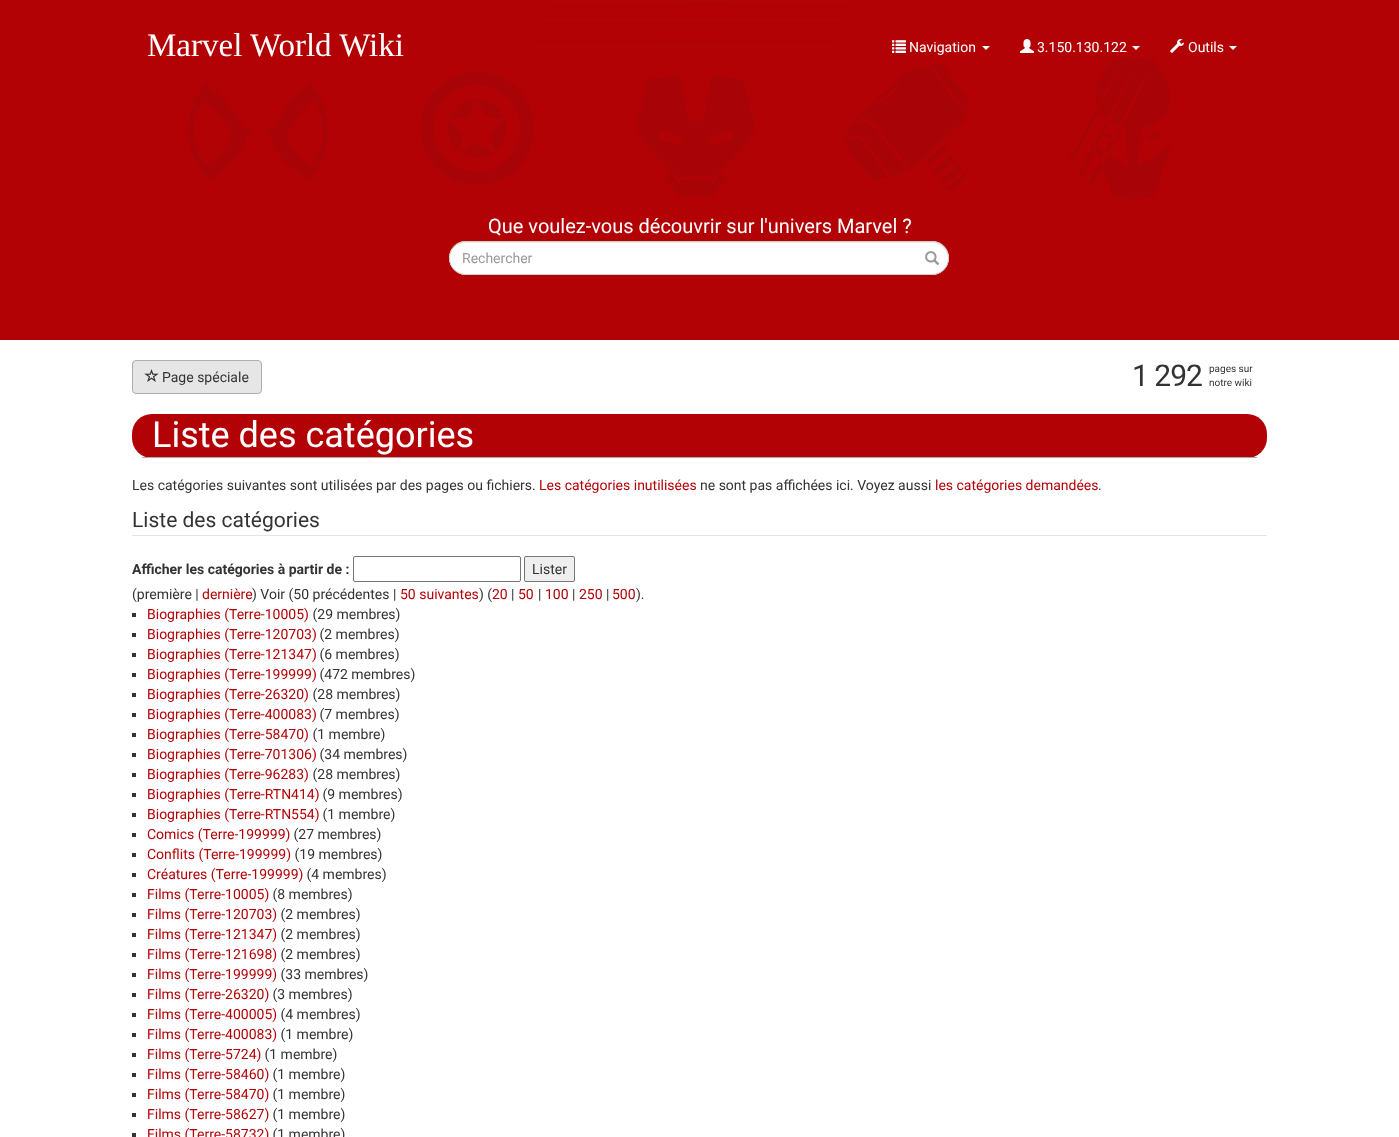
(async () => {
const canvas = document.querySelector("canvas")
canvas.width = 1399
canvas.height = 1137
const c = canvas.getContext("2d")
c.miterLimit = 4
c.fontKerning = "normal"
function T(s,x,y){c.fillText(s,x,y)}
function R(x,y,w,h){c.fillRect(x,y,w,h)}
function Q(x,y,w,h,r){c.beginPath();c.roundRect(x,y,w,h,r);c.fill()}
async function I(src,x,y,w,h){const img=new Image();img.src=src;await img.decode();c.drawImage(img,x,y,w,h)}
let path
c.fillStyle="#fff"
R(0,0,1399,1137)
c.fillStyle="#b30206"
R(0,0,1399,340)
await I("1.png",188,0,983,215)
c.font="33px Liberation Serif"
c.fillStyle="#fff"
T("Marvel World Wiki",147,56)
await I("2.png",892,40,14,13)
c.font="14px Roboto"
T("Navigation",909,52)
path = new Path2D("M982 46h8l-4 4z")
c.fill(path)
await I("3.png",1020,39,14,14)
T("3.150.130.122",1037,52)
path = new Path2D("M1132 46h8l-4 4z")
c.fill(path)
await I("4.png",1170,39,14,14)
T("Outils",1188,52)
path = new Path2D("M1229 46h8l-4 4z")
c.fill(path)
c.font="20px Roboto"
T("Que voulez-vous découvrir sur l'univers Marvel ?",488,233)
Q(449,241,500,34,17)
c.fillStyle="#ececec"
path = new Path2D("M466 243h466c9 0 17 9 16 18v-3c0-9-7-16-16-16h-466c-9 0-16 7-16 16v4c-1-9 4-19 16-19z")
c.fill(path)
c.beginPath()
c.roundRect(449.5,241.5,499,33,16.5)
c.strokeStyle="#ccc"
c.stroke()
c.font="14px Roboto"
c.fillStyle="#999"
T("Rechercher",462,263)
await I("5.png",925,251,14,14)
c.fillStyle="#e6e6e6"
c.beginPath()
c.roundRect(132.5,360.5,129,33,3.5)
c.fill()
c.strokeStyle="#adadad"
c.stroke()
await I("6.png",144,369,15,13)
c.fillStyle="#333"
T("Page spéciale",162,382)
c.letterSpacing="-1px"
c.font="30px Roboto"
T("1 292",1132,386)
c.letterSpacing="0px"
c.font="10px Roboto"
T("pages sur",1209,372)
T("notre wiki",1209,386)
c.fillStyle="#b30206"
Q(132,414,1135,44,20)
c.fillStyle="#aaa"
R(142,457,1115,1)
c.font="36px Roboto"
c.fillStyle="#fff"
T("Liste des catégories",152,447)
c.font="14px Roboto"
c.fillStyle="#333"
T("Les catégories suivantes sont utilisées par des pages ou fichiers.",132,490)
c.fillStyle="#b30206"
T("Les catégories inutilisées",539,490)
c.fillStyle="#333"
T("ne sont pas affichées ici. Voyez aussi",700,490)
c.fillStyle="#b30206"
T("les catégories demandées",935,490)
c.fillStyle="#333"
T(".",1098,490)
c.fillStyle="#e5e5e5"
R(132,535,1135,1)
c.font="21px Roboto"
c.fillStyle="#333"
T("Liste des catégories",132,527)
c.font="bold 14px Roboto"
T("Afficher les catégories à partir de :",132,574)
c.beginPath()
c.roundRect(353.5,556.5,167,25,1.5)
c.strokeStyle="#767676"
c.stroke()
c.fillStyle="#efefef"
c.beginPath()
c.roundRect(524.5,556.5,50,25,1.5)
c.fill()
c.stroke()
c.font="14px Roboto"
c.fillStyle="#333"
T("Lister",532,574)
T("(première |",132,599)
c.fillStyle="#b30206"
T("dernière",202,599)
c.fillStyle="#333"
T(") Voir (50 précédentes |",252,599)
c.fillStyle="#b30206"
T("50 suivantes",400,599)
c.fillStyle="#333"
T(") (",479,599)
c.fillStyle="#b30206"
T("20",492,599)
c.fillStyle="#333"
T("|",511,599)
c.fillStyle="#b30206"
T("50",518,599)
c.fillStyle="#333"
T("|",538,599)
c.fillStyle="#b30206"
T("100",545,599)
c.fillStyle="#333"
T("|",572,599)
c.fillStyle="#b30206"
T("250",579,599)
c.fillStyle="#333"
T("|",606,599)
c.fillStyle="#b30206"
T("500",612,599)
c.fillStyle="#333"
T(").",636,599)
R(132,613,4,4)
c.fillStyle="#b30206"
T("Biographies (Terre-10005)",147,619)
c.fillStyle="#333"
T(" (29 membres)",309,619)
R(132,633,4,4)
c.fillStyle="#b30206"
T("Biographies (Terre-120703)",147,639)
c.fillStyle="#333"
T(" (2 membres)",316,639)
R(132,653,4,4)
c.fillStyle="#b30206"
T("Biographies (Terre-121347)",147,659)
c.fillStyle="#333"
T(" (6 membres)",316,659)
R(132,673,4,4)
c.fillStyle="#b30206"
T("Biographies (Terre-199999)",147,679)
c.fillStyle="#333"
T(" (472 membres)",316,679)
R(132,693,4,4)
c.fillStyle="#b30206"
T("Biographies (Terre-26320)",147,699)
c.fillStyle="#333"
T(" (28 membres)",309,699)
R(132,713,4,4)
c.fillStyle="#b30206"
T("Biographies (Terre-400083)",147,719)
c.fillStyle="#333"
T(" (7 membres)",316,719)
R(132,733,4,4)
c.fillStyle="#b30206"
T("Biographies (Terre-58470)",147,739)
c.fillStyle="#333"
T(" (1 membre)",309,739)
R(132,753,4,4)
c.fillStyle="#b30206"
T("Biographies (Terre-701306)",147,759)
c.fillStyle="#333"
T(" (34 membres)",316,759)
R(132,773,4,4)
c.fillStyle="#b30206"
T("Biographies (Terre-96283)",147,779)
c.fillStyle="#333"
T(" (28 membres)",309,779)
R(132,793,4,4)
c.fillStyle="#b30206"
T("Biographies (Terre-RTN414)",147,799)
c.fillStyle="#333"
T(" (9 membres)",319,799)
R(132,813,4,4)
c.fillStyle="#b30206"
T("Biographies (Terre-RTN554)",147,819)
c.fillStyle="#333"
T(" (1 membre)",319,819)
R(132,833,4,4)
c.fillStyle="#b30206"
T("Comics (Terre-199999)",147,839)
c.fillStyle="#333"
T(" (27 membres)",290,839)
R(132,853,4,4)
c.fillStyle="#b30206"
T("Conflits (Terre-199999)",147,859)
c.fillStyle="#333"
T(" (19 membres)",291,859)
R(132,873,4,4)
c.fillStyle="#b30206"
T("Créatures (Terre-199999)",147,879)
c.fillStyle="#333"
T(" (4 membres)",303,879)
R(132,893,4,4)
c.fillStyle="#b30206"
T("Films (Terre-10005)",147,899)
c.fillStyle="#333"
T(" (8 membres)",269,899)
R(132,913,4,4)
c.fillStyle="#b30206"
T("Films (Terre-120703)",147,919)
c.fillStyle="#333"
T(" (2 membres)",277,919)
R(132,933,4,4)
c.fillStyle="#b30206"
T("Films (Terre-121347)",147,939)
c.fillStyle="#333"
T(" (2 membres)",277,939)
R(132,953,4,4)
c.fillStyle="#b30206"
T("Films (Terre-121698)",147,959)
c.fillStyle="#333"
T(" (2 membres)",277,959)
R(132,973,4,4)
c.fillStyle="#b30206"
T("Films (Terre-199999)",147,979)
c.fillStyle="#333"
T(" (33 membres)",277,979)
R(132,993,4,4)
c.fillStyle="#b30206"
T("Films (Terre-26320)",147,999)
c.fillStyle="#333"
T(" (3 membres)",269,999)
R(132,1013,4,4)
c.fillStyle="#b30206"
T("Films (Terre-400005)",147,1019)
c.fillStyle="#333"
T(" (4 membres)",277,1019)
R(132,1033,4,4)
c.fillStyle="#b30206"
T("Films (Terre-400083)",147,1039)
c.fillStyle="#333"
T(" (1 membre)",277,1039)
R(132,1053,4,4)
c.fillStyle="#b30206"
T("Films (Terre-5724)",147,1059)
c.fillStyle="#333"
T(" (1 membre)",261,1059)
R(132,1073,4,4)
c.fillStyle="#b30206"
T("Films (Terre-58460)",147,1079)
c.fillStyle="#333"
T(" (1 membre)",269,1079)
R(132,1093,4,4)
c.fillStyle="#b30206"
T("Films (Terre-58470)",147,1099)
c.fillStyle="#333"
T(" (1 membre)",269,1099)
R(132,1113,4,4)
c.fillStyle="#b30206"
T("Films (Terre-58627)",147,1119)
c.fillStyle="#333"
T(" (1 membre)",269,1119)
R(132,1133,4,4)
c.fillStyle="#b30206"
T("Films (Terre-58732)",147,1139)
c.fillStyle="#333"
T(" (1 membre)",269,1139)
})()
